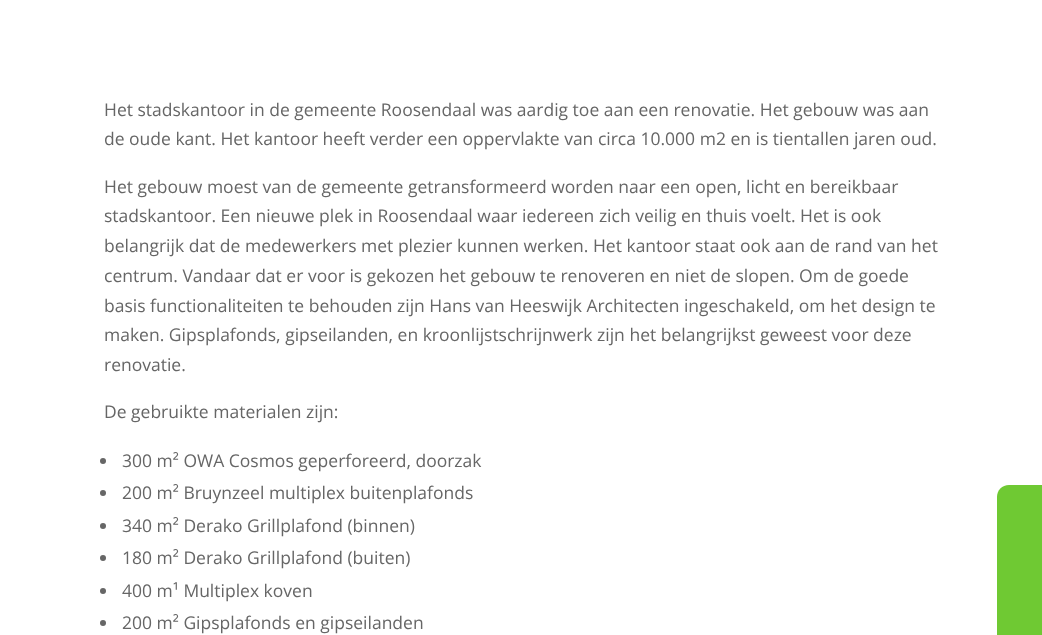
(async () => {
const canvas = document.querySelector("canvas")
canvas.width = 1042
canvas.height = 635
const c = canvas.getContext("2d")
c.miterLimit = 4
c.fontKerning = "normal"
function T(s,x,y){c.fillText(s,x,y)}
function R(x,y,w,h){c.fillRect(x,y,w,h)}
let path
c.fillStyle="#fff"
R(0,0,1042,635)
c.font="17.5px Open Sans"
c.fillStyle="#666"
T("Het stadskantoor in de gemeente Roosendaal was aardig toe aan een renovatie. Het gebouw was aan",104,116)
T("de oude kant. Het kantoor heeft verder een oppervlakte van circa 10.000 m2 en is tientallen jaren oud.",104,145)
T("Het gebouw moest van de gemeente getransformeerd worden naar een open, licht en bereikbaar",104,193)
T("stadskantoor. Een nieuwe plek in Roosendaal waar iedereen zich veilig en thuis voelt. Het is ook",104,222)
T("belangrijk dat de medewerkers met plezier kunnen werken. Het kantoor staat ook aan de rand van het",104,252)
T("centrum. Vandaar dat er voor is gekozen het gebouw te renoveren en niet de slopen. Om de goede",104,282)
T("basis functionaliteiten te behouden zijn Hans van Heeswijk Architecten ingeschakeld, om het design te",104,312)
T("maken. Gipsplafonds, gipseilanden, en kroonlijstschrijnwerk zijn het belangrijkst geweest voor deze",104,341)
T("renovatie.",104,371)
T("De gebruikte materialen zijn:",104,418)
c.beginPath()
c.arc(103,461,3,0,7)
c.fill()
T("300 m² OWA Cosmos geperforeerd, doorzak",122,467)
c.beginPath()
c.arc(103,493,3,0,7)
c.fill()
T("200 m² Bruynzeel multiplex buitenplafonds",122,499)
c.beginPath()
c.arc(103,526,3,0,7)
c.fill()
T("340 m² Derako Grillplafond (binnen)",122,532)
c.beginPath()
c.arc(103,558,3,0,7)
c.fill()
T("180 m² Derako Grillplafond (buiten)",122,564)
c.beginPath()
c.arc(103,591,3,0,7)
c.fill()
T("400 m¹ Multiplex koven",122,597)
c.beginPath()
c.arc(103,623,3,0,7)
c.fill()
T("200 m² Gipsplafonds en gipseilanden",122,629)
c.fillStyle="#6fc933"
path = new Path2D("M997 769v-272c0-7 5-12 12-12h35v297h-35c-7 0-12-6-12-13z")
c.fill(path)
})()
